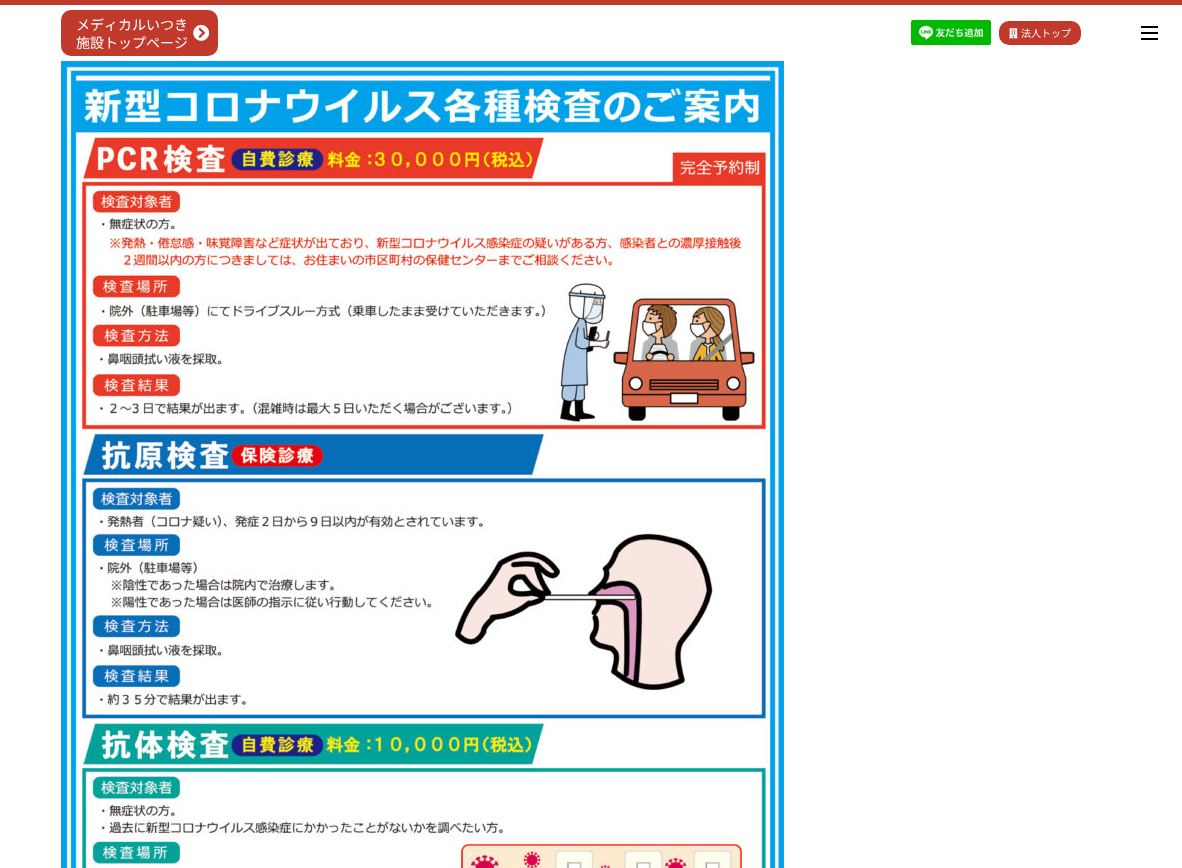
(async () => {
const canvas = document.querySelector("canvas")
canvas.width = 1182
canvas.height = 868
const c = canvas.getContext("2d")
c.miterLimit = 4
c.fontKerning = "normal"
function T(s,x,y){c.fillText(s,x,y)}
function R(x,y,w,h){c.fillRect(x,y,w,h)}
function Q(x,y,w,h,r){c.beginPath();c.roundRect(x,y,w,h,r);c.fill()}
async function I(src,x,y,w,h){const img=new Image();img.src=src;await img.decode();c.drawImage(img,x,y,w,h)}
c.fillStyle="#fff"
R(0,0,1182,868)
c.fillStyle="#c0392b"
R(0,0,1182,5)
Q(61,10,157,46,10)
c.font="14px Noto Sans JP"
c.fillStyle="#fff"
T("メディカルいつき",76,30)
await I("1.png",193,24,17,17)
T("施設トップページ",76,48)
await I("2.png",911,20,80,25)
c.fillStyle="#c0392b"
Q(999,21,82,24,10)
await I("3.png",1009,28,9,11)
c.font="10px Noto Sans JP"
c.fillStyle="#fff"
T("法人トップ",1021,37)
c.fillStyle="#000"
R(1141,38,17,2)
R(1141,26,17,2)
R(1141,32,17,2)
await I("4.png",61,61,723,807)
})()
